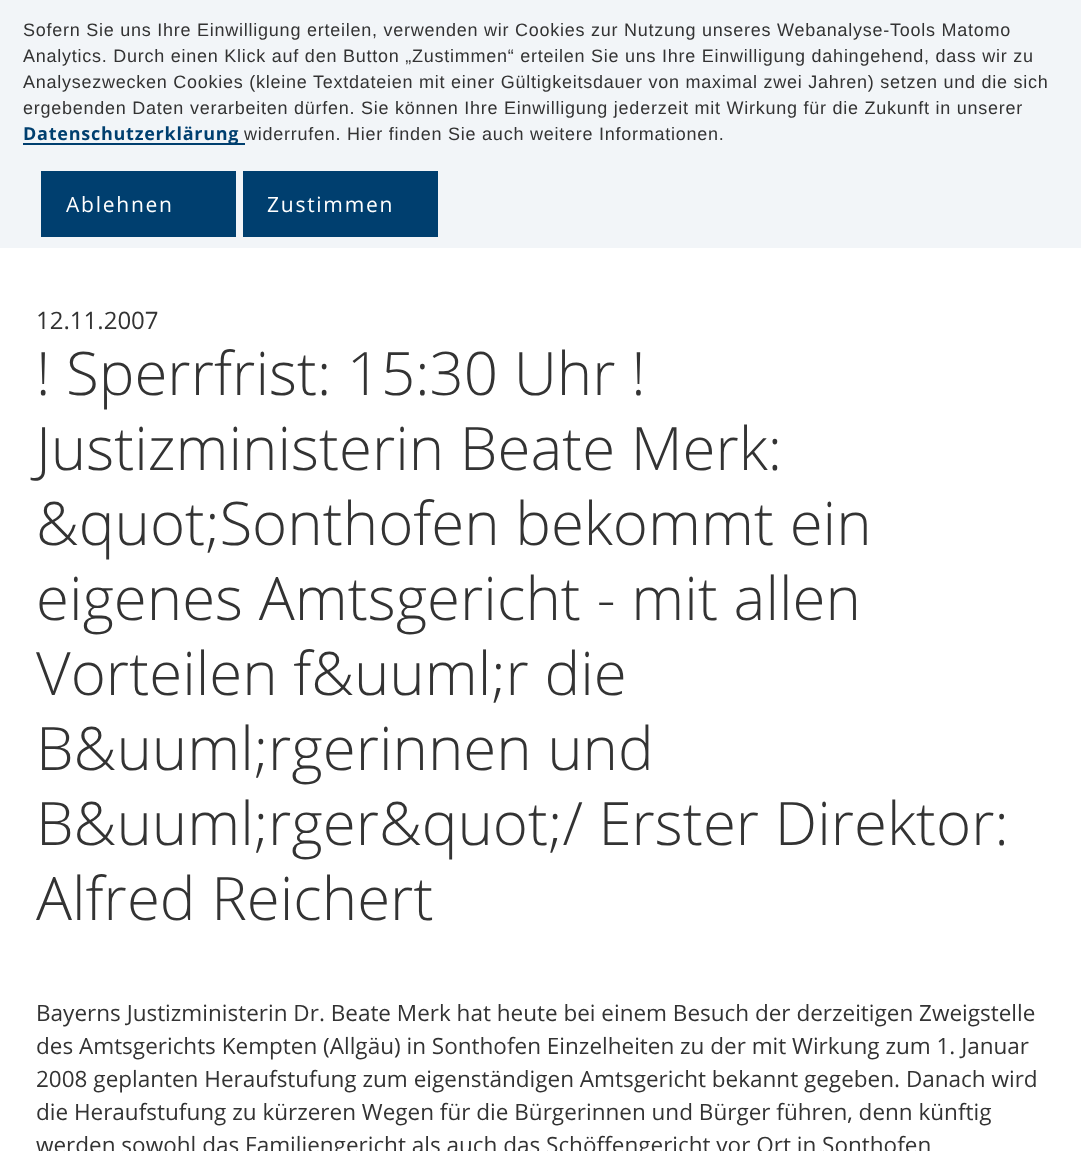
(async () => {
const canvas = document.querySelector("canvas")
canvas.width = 1081
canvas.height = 1151
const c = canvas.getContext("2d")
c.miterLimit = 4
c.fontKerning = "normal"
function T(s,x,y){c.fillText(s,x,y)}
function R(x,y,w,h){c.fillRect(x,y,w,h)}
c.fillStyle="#fff"
R(0,0,1081,1151)
c.fillStyle="#f2f5f8"
R(0,0,1081,248)
c.letterSpacing="0.75px"
c.font="18px Liberation Sans"
c.fillStyle="#333"
T("Sofern Sie uns Ihre Einwilligung erteilen, verwenden wir Cookies zur Nutzung unseres Webanalyse-Tools Matomo",23,36)
T("Analytics. Durch einen Klick auf den Button „Zustimmen“ erteilen Sie uns Ihre Einwilligung dahingehend, dass wir zu",23,62)
T("Analysezwecken Cookies (kleine Textdateien mit einer Gültigkeitsdauer von maximal zwei Jahren) setzen und die sich",23,88)
T("ergebenden Daten verarbeiten dürfen. Sie können Ihre Einwilligung jederzeit mit Wirkung für die Zukunft in unserer",23,114)
c.fillStyle="#003f6f"
R(23,143,222,2)
c.font="bold 18px Open Sans"
T("Datenschutzerklärung",23,140)
c.font="18px Liberation Sans"
c.fillStyle="#333"
T("widerrufen. Hier finden Sie auch weitere Informationen.",244,140)
c.fillStyle="#003f6f"
R(41,171,195,66)
c.letterSpacing="1.75px"
c.font="21px Open Sans"
c.fillStyle="#fff"
T("Ablehnen",66,212)
c.fillStyle="#003f6f"
R(243,171,195,66)
c.fillStyle="#fff"
T("Zustimmen",267,212)
c.letterSpacing="0px"
c.font="24px Open Sans"
c.fillStyle="#333"
T("12.11.2007",36,329)
c.font="300 60px Open Sans"
T("! Sperrfrist: 15:30 Uhr !",36,395)
T("Justizministerin Beate Merk:",36,470)
T("&quot;Sonthofen bekommt ein",36,545)
T("eigenes Amtsgericht - mit allen",36,620)
T("Vorteilen f&uuml;r die",36,695)
T("B&uuml;rgerinnen und",36,770)
T("B&uuml;rger&quot;/ Erster Direktor:",36,845)
T("Alfred Reichert",36,920)
c.font="22.5px Open Sans"
T("Bayerns Justizministerin Dr. Beate Merk hat heute bei einem Besuch der derzeitigen Zweigstelle",36,1021)
T("des Amtsgerichts Kempten (Allgäu) in Sonthofen Einzelheiten zu der mit Wirkung zum 1. Januar",36,1054)
T("2008 geplanten Heraufstufung zum eigenständigen Amtsgericht bekannt gegeben. Danach wird",36,1087)
T("die Heraufstufung zu kürzeren Wegen für die Bürgerinnen und Bürger führen, denn künftig",36,1120)
T("werden sowohl das Familiengericht als auch das Schöffengericht vor Ort in Sonthofen",36,1153)
})()
